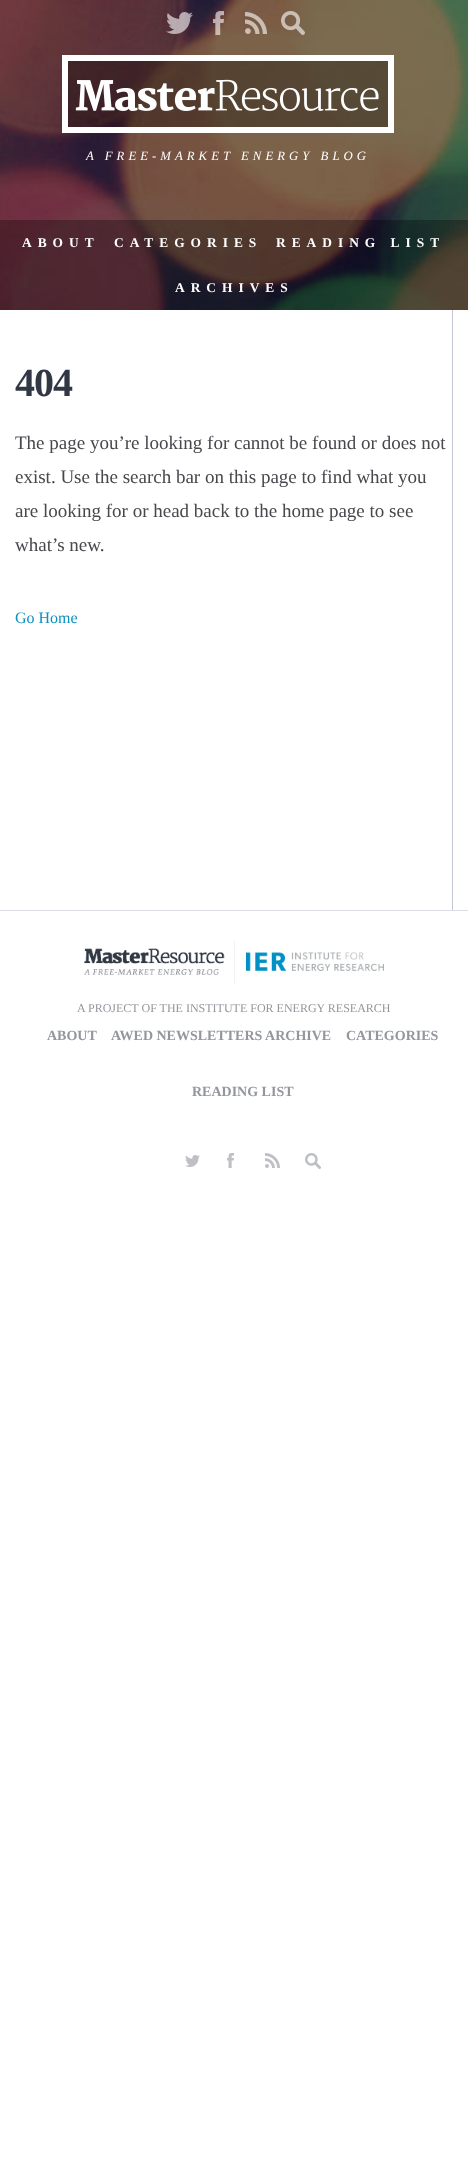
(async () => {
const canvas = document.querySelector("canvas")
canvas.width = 468
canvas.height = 2169
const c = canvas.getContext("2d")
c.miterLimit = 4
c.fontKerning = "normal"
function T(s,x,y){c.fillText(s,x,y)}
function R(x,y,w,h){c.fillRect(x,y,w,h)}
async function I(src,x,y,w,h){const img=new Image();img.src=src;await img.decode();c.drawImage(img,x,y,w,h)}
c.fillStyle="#fff"
R(0,0,468,2169)
await I("1.png",0,0,468,310)
await I("2.png",166,12,27,22)
await I("3.png",213,11,11,24)
await I("4.png",245,12,22,22)
await I("5.png",281,11,24,24)
c.fillStyle="#0000004d"
c.beginPath()
c.rect(65,58,326,72)
c.fill()
c.strokeStyle="#fff"
c.lineWidth=6
c.stroke()
await I("6.png",75,79,304,32)
c.letterSpacing="4px"
c.font="italic 12.8px Liberation Serif"
c.fillStyle="#fff"
T("A FREE-MARKET ENERGY BLOG",86,160)
c.fillStyle="#0000004d"
R(0,220,468,90)
c.letterSpacing="6px"
c.font="bold 13.4px Liberation Serif"
c.fillStyle="#fff"
T("ABOUT",22,247)
T("CATEGORIES",114,247)
T("READING LIST",276,247)
T("ARCHIVES",175,292)
c.fillStyle="#c2c6d2"
R(452,310,1,600)
c.letterSpacing="-1px"
c.font="bold 40px Liberation Serif"
c.fillStyle="#313844"
T("404",15,396)
c.letterSpacing="0px"
c.font="19px Liberation Serif"
c.fillStyle="#46484c"
T("The page you’re looking for cannot be found or does not",15,449)
T("exist. Use the search bar on this page to find what you",15,483)
T("are looking for or head back to the home page to see",15,517)
T("what’s new.",15,551)
c.font="16px Liberation Serif"
c.fillStyle="#0a90c1"
T("Go Home",15,623)
c.fillStyle="#dbdee6"
R(0,910,468,1)
await I("7.png",84,941,300,42)
c.font="12px Liberation Serif"
c.fillStyle="#93969d"
T("A PROJECT OF THE INSTITUTE FOR ENERGY RESEARCH",77,1012)
c.font="bold 14px Liberation Serif"
T("ABOUT",47,1040)
T("AWED NEWSLETTERS ARCHIVE",111,1040)
T("CATEGORIES",346,1040)
T("READING LIST",192,1096)
await I("8.png",185,1155,15,12)
await I("9.png",227,1153,7,15)
await I("10.png",265,1153,15,15)
await I("11.png",305,1153,16,16)
})()
